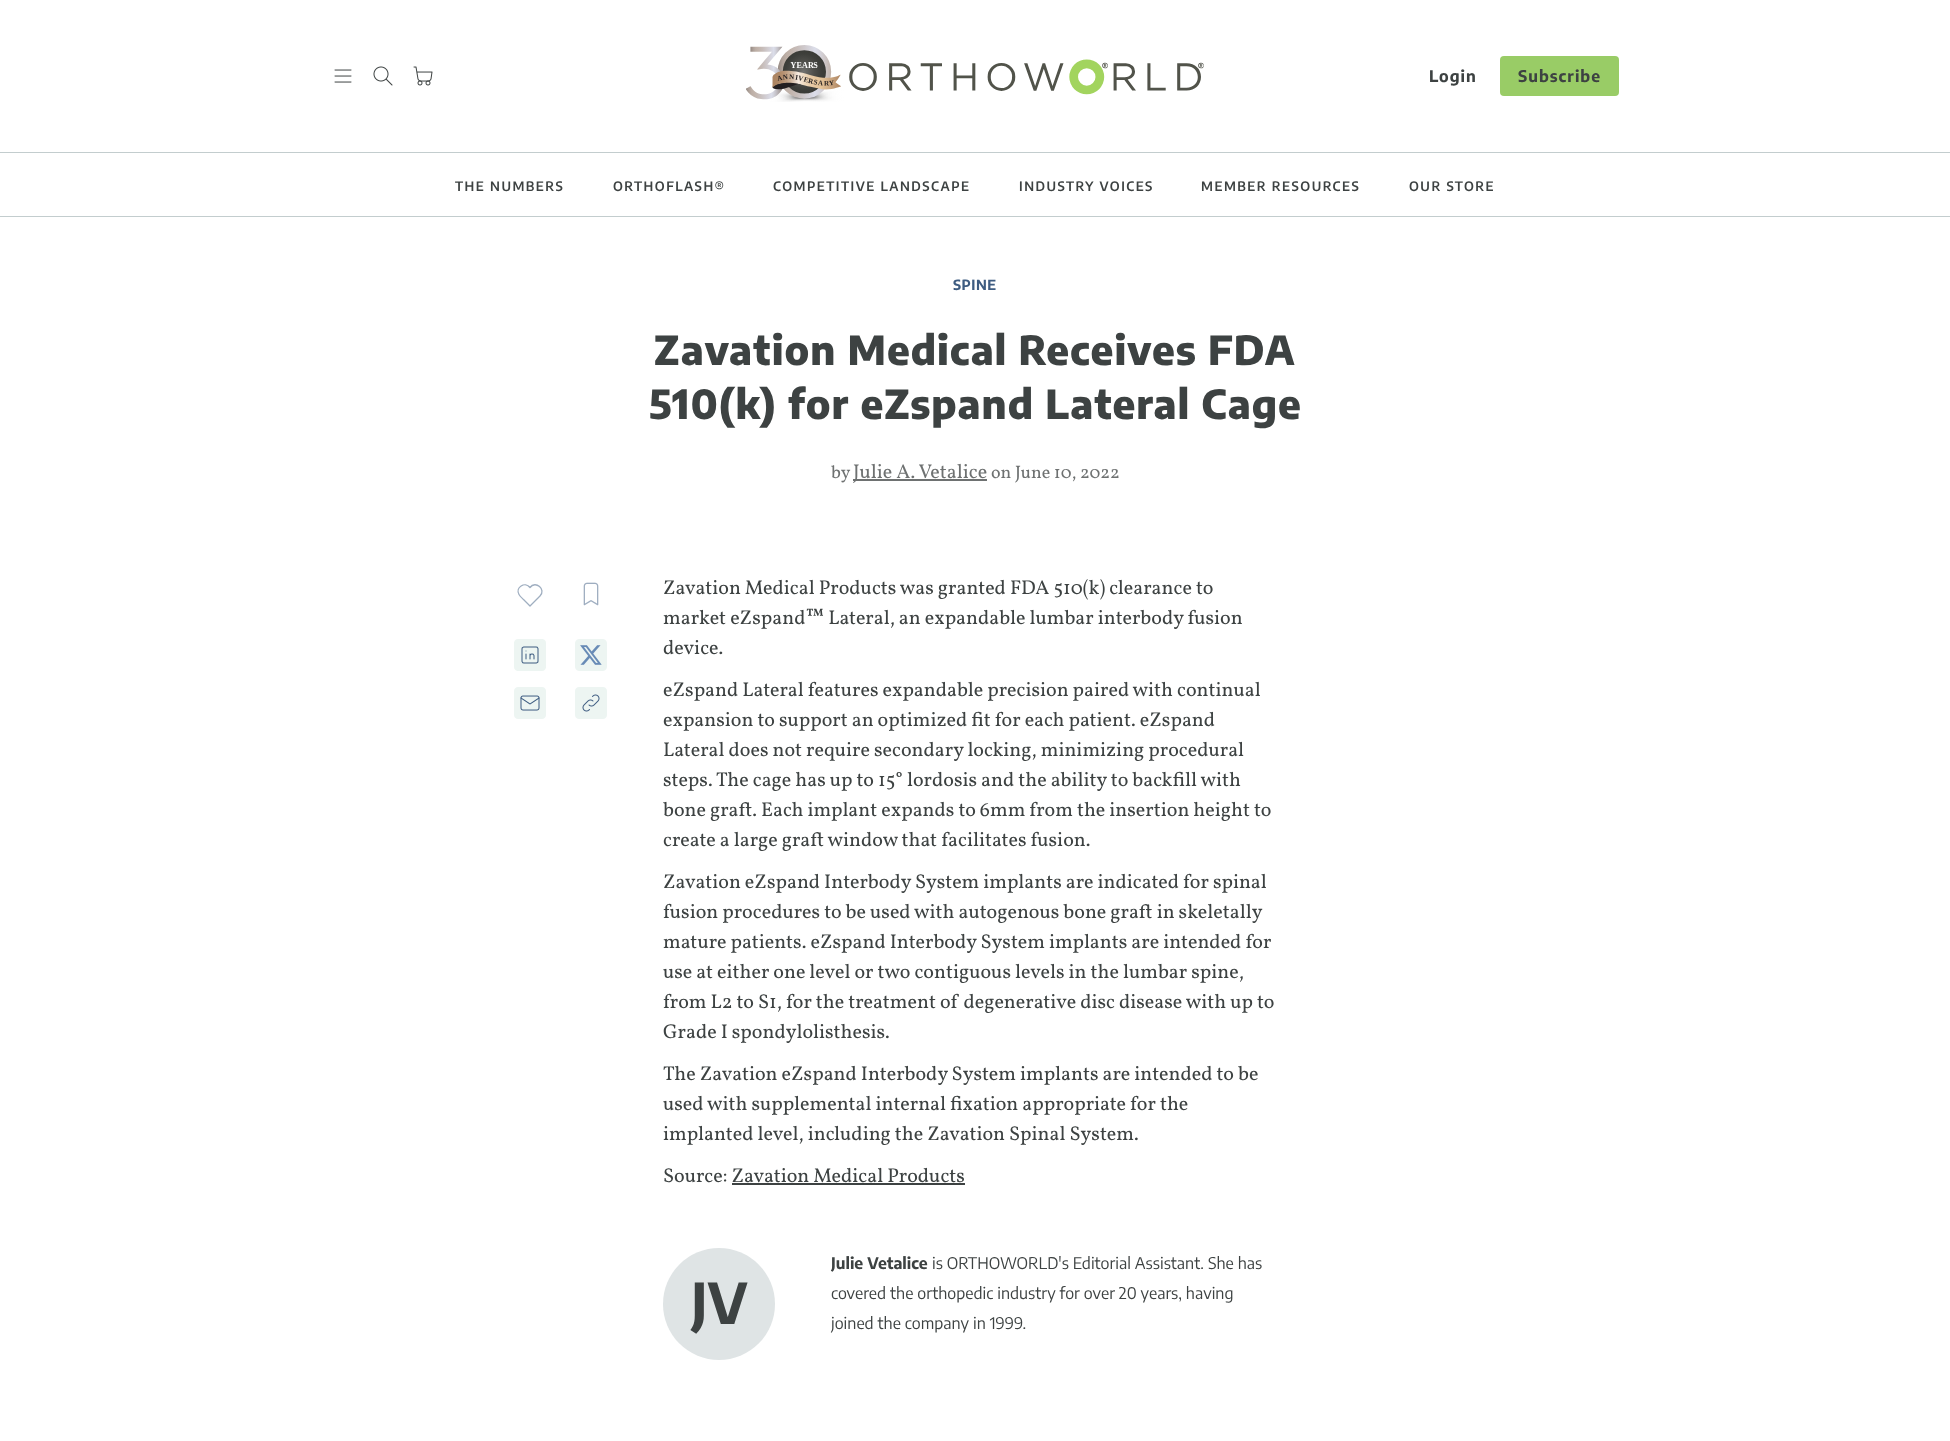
(async () => {
const canvas = document.querySelector("canvas")
canvas.width = 1950
canvas.height = 1441
const c = canvas.getContext("2d")
c.miterLimit = 4
c.fontKerning = "normal"
function T(s,x,y){c.fillText(s,x,y)}
function R(x,y,w,h){c.fillRect(x,y,w,h)}
function Q(x,y,w,h,r){c.beginPath();c.roundRect(x,y,w,h,r);c.fill()}
async function I(src,x,y,w,h){const img=new Image();img.src=src;await img.decode();c.drawImage(img,x,y,w,h)}
let path
c.fillStyle="#fff"
R(0,0,1950,1441)
c.fillStyle="#c3cdce"
R(0,216,1950,1)
await I("1.png",334,69,18,14)
await I("2.png",373,66,20,20)
await I("3.png",413,66,20,20)
await I("4.png",746,45,458,57)
c.letterSpacing="1px"
c.font="bold 16px Encode Sans Condensed"
c.fillStyle="#3d4242"
T("Login",1429,82)
c.fillStyle="#9c6"
Q(1500,56,119,40,4)
c.fillStyle="#3d4242"
T("Subscribe",1518,82)
c.fillStyle="#c3cdce"
R(0,152,1950,1)
c.letterSpacing="1.5px"
c.font="600 13px Encode Sans Condensed"
c.fillStyle="#3d4242"
T("THE NUMBERS",455,191)
T("ORTHOFLASH®",613,191)
T("COMPETITIVE LANDSCAPE",773,191)
T("INDUSTRY VOICES",1019,191)
T("MEMBER RESOURCES",1201,191)
T("OUR STORE",1409,191)
c.letterSpacing="0.5px"
c.font="bold 14px Encode Sans Condensed"
c.fillStyle="#3e5c81"
T("SPINE",953,290)
c.letterSpacing="1px"
c.font="800 40px Encode Sans Condensed"
c.fillStyle="#3d4242"
T("Zavation Medical Receives FDA",654,365)
T("510(k) for eZspand Lateral Cage",649,419)
c.letterSpacing="0px"
c.font="18px Vollkorn"
c.fillStyle="#6e7171"
T("by",831,478)
R(853,479,134,2)
c.font="20px Vollkorn"
T("Julie A. Vetalice",853,478)
c.font="18px Vollkorn"
T("on June 10, 2022",991,478)
path = new Path2D("M540 596l-10 10l-6.5-6.5c-1.5-1.5-3.5-3-4.5-5c-4-7 6-13.5 11-7c5.5-7.5 16.5 2 10 8.5")
c.strokeStyle="#9faec0"
c.lineWidth=1.3
c.lineCap="round"
c.lineJoin="round"
c.stroke(path)
await I("5.png",583,582,16,24)
await I("6.png",514,639,32,32)
await I("7.png",575,639,32,32)
await I("8.png",514,687,32,32)
await I("9.png",575,687,32,32)
c.font="20px Vollkorn"
c.fillStyle="#3d4242"
T("Zavation Medical Products was granted FDA 510(k) clearance to",663,594)
T("market eZspand™ Lateral, an expandable lumbar interbody fusion",663,624)
T("device.",663,654)
T("eZspand Lateral features expandable precision paired with continual",663,696)
T("expansion to support an optimized fit for each patient. eZspand",663,726)
T("Lateral does not require secondary locking, minimizing procedural",663,756)
T("steps. The cage has up to 15° lordosis and the ability to backfill with",663,786)
T("bone graft. Each implant expands to 6mm from the insertion height to",663,816)
T("create a large graft window that facilitates fusion.",663,846)
T("Zavation eZspand Interbody System implants are indicated for spinal",663,888)
T("fusion procedures to be used with autogenous bone graft in skeletally",663,918)
T("mature patients. eZspand Interbody System implants are intended for",663,948)
T("use at either one level or two contiguous levels in the lumbar spine,",663,978)
T("from L2 to S1, for the treatment of degenerative disc disease with up to",663,1008)
T("Grade I spondylolisthesis.",663,1038)
T("The Zavation eZspand Interbody System implants are intended to be",663,1080)
T("used with supplemental internal fixation appropriate for the",663,1110)
T("implanted level, including the Zavation Spinal System.",663,1140)
T("Source: Zavation Medical Products",663,1182)
R(732,1183,233,2)
c.fillStyle="#dfe4e5"
c.beginPath()
c.arc(719,1304,56,0,7)
c.fill()
c.font="bold 56px Encode Sans Condensed"
c.fillStyle="#3d4242"
T("JV",691,1324)
c.font="bold 16px Encode Sans Condensed"
T("Julie Vetalice",831,1269)
c.font="16px Encode Sans Condensed"
T("is ORTHOWORLD's Editorial Assistant. She has",932,1269)
T("covered the orthopedic industry for over 20 years, having",831,1299)
T("joined the company in 1999.",831,1329)
})()
